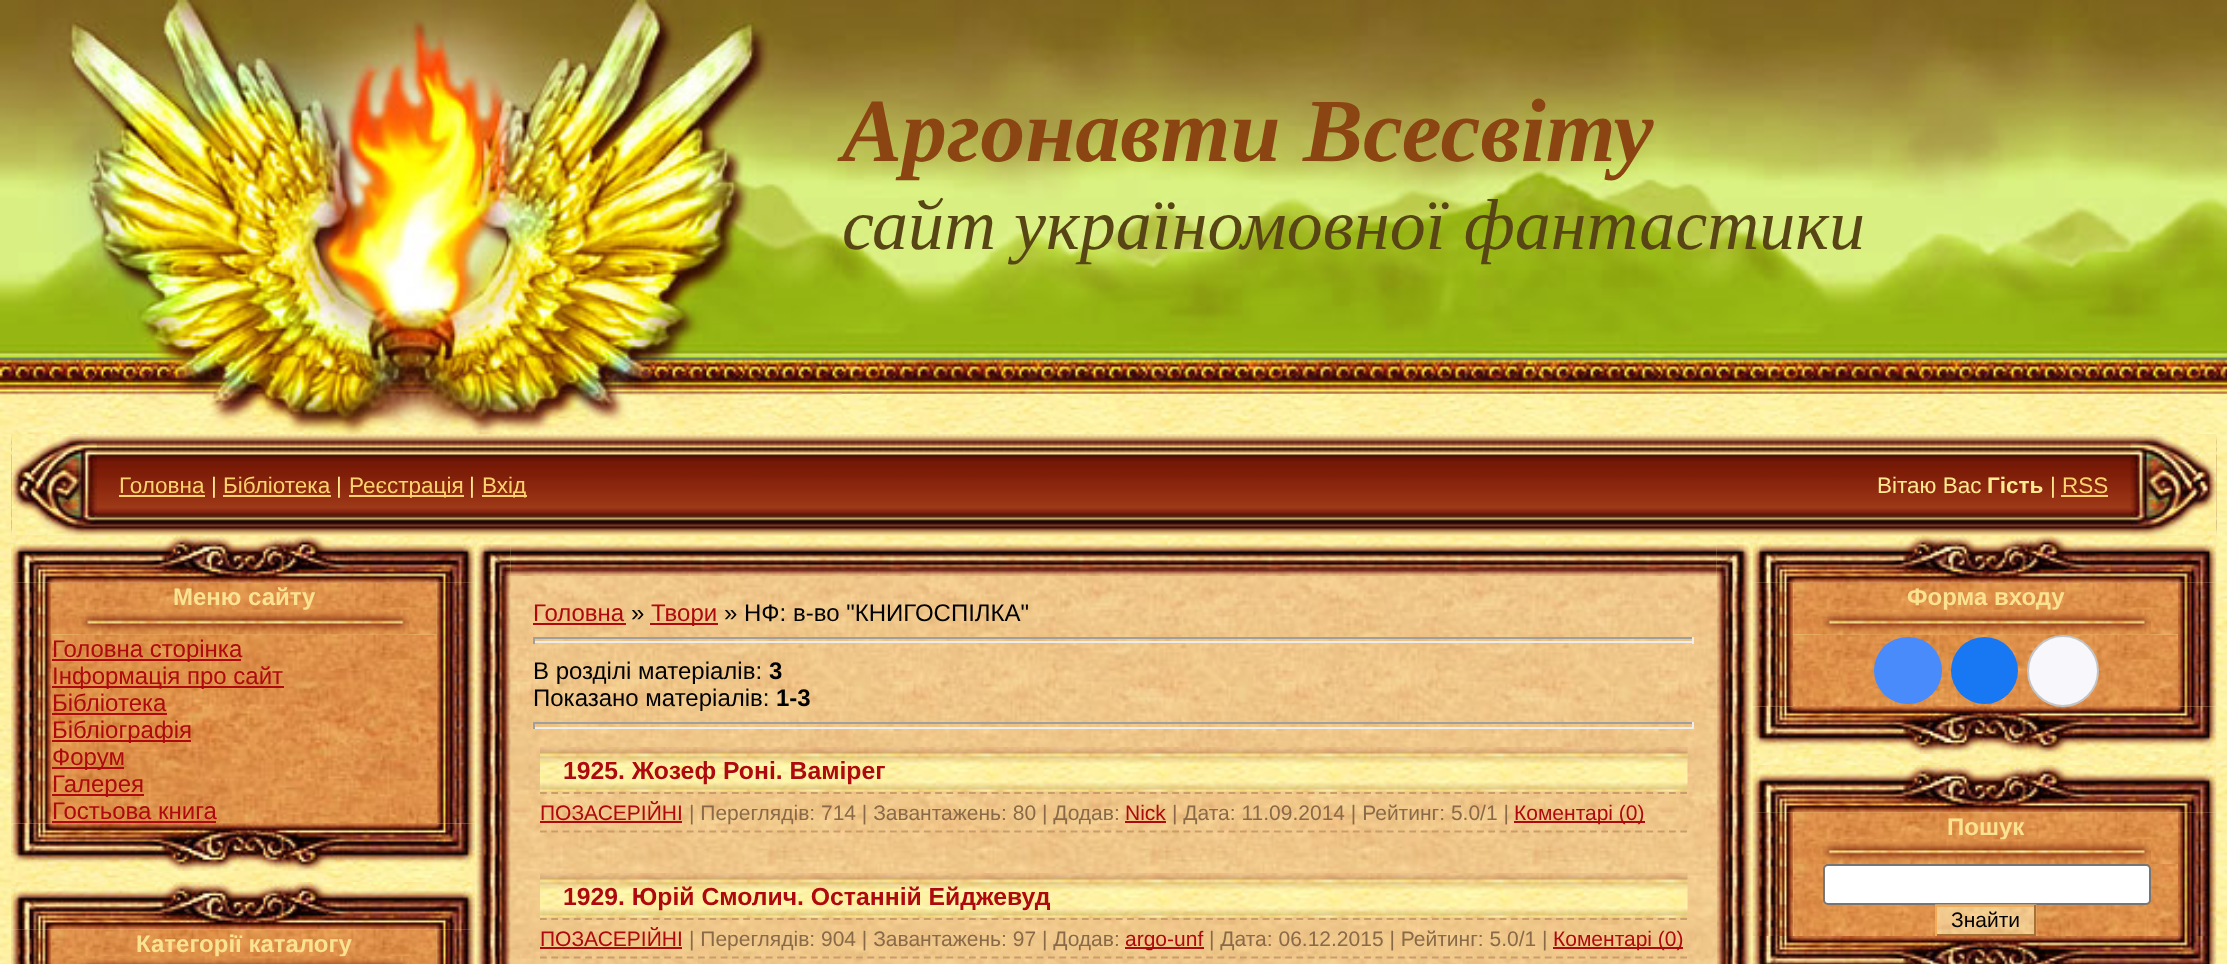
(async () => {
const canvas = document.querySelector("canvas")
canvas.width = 2227
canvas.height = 964
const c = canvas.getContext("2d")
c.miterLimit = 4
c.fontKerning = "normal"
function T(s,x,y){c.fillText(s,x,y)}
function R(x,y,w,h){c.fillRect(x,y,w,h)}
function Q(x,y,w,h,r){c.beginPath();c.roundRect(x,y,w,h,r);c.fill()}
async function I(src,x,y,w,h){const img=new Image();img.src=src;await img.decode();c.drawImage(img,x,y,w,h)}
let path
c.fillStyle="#fff"
R(0,0,2227,964)
await I("1.png",0,393,2227,571)
await I("2.png",841,0,1386,394)
await I("4.png",11,434,2206,102)
await I("3.png",0,0,842,435)
c.font="italic bold 90px Liberation Serif"
c.fillStyle="#8b4513"
T("Аргонавти Всесвіту",842,161)
c.font="italic 72px Liberation Serif"
c.fillStyle="#574515"
T("сайт україномовної фантастики",842,249)
await I("5.png",11,434,86,102)
c.font="22.5px Liberation Sans"
c.fillStyle="#fed36f"
T("Головна",119,493)
R(119,495,86,2)
c.fillStyle="#ffe991"
T("|",211,493)
c.fillStyle="#fed36f"
T("Бібліотека",223,493)
R(223,495,108,2)
c.fillStyle="#ffe991"
T("|",336,493)
c.fillStyle="#fed36f"
R(349,495,115,2)
T("Реєстрація",349,493)
c.fillStyle="#ffe991"
T("|",469,493)
c.fillStyle="#fed36f"
R(482,495,45,2)
T("Вхід",482,493)
c.fillStyle="#ffe991"
T("Вітаю Вас",1877,493)
c.font="bold 22.5px Liberation Sans"
T("Гість",1987,493)
c.font="22.5px Liberation Sans"
T("|",2050,493)
c.fillStyle="#fed36f"
T("RSS",2062,493)
R(2061,495,47,2)
await I("6.png",2130,434,87,102)
await I("8.png",11,582,41,242)
await I("9.png",51,582,386,53)
await I("11.png",436,582,39,242)
await I("15.png",11,929,41,35)
await I("16.png",51,929,386,35)
await I("18.png",436,929,39,35)
await I("22.png",474,576,37,388)
await I("7.png",11,535,464,48)
c.font="bold 24px Liberation Sans"
c.fillStyle="#fae291"
T("Меню сайту",173,605)
c.fillStyle="#e3944f"
R(52,635,385,189)
await I("12.png",51,634,386,190)
await I("10.png",78,609,332,26)
c.fillStyle="#ad090e"
R(52,659,189,2)
c.font="24px Liberation Sans"
T("Головна сторінка",52,657)
R(52,686,232,2)
T("Інформація про сайт",52,684)
T("Бібліотека",52,711)
R(52,713,115,2)
R(52,740,139,2)
T("Бібліографія",52,738)
R(52,767,72,2)
T("Форум",52,765)
R(52,794,92,2)
T("Галерея",52,792)
T("Гостьова книга",52,819)
R(52,821,164,2)
await I("13.png",11,823,464,48)
await I("14.png",11,882,464,48)
c.font="bold 24px Liberation Sans"
c.fillStyle="#fae291"
T("Категорії каталогу",136,952)
await I("17.png",79,956,331,8)
await I("20.png",510,535,1207,41)
await I("19.png",474,535,37,41)
await I("21.png",1716,535,37,41)
await I("23.png",510,576,1207,388)
c.font="24px Liberation Sans"
c.fillStyle="#ad090e"
T("Головна",533,621)
R(533,623,93,2)
c.fillStyle="#000"
T("»",631,621)
c.fillStyle="#ad090e"
R(650,623,68,2)
T("Твори",651,621)
c.fillStyle="#000"
T("» НФ: в-во \"КНИГОСПІЛКА\"",724,621)
c.fillStyle="#9f9f9f"
R(533,637,1161,2)
c.fillStyle="#eee"
R(1692,637,2,7)
R(533,641,1161,2)
c.fillStyle="#9f9f9f"
R(533,637,2,7)
c.fillStyle="#000"
T("В розділі матеріалів:",533,679)
c.font="bold 24px Liberation Sans"
T("3",769,679)
c.font="24px Liberation Sans"
T("Показано матеріалів:",533,706)
c.font="bold 24px Liberation Sans"
T("1-3",776,706)
c.fillStyle="#9f9f9f"
R(533,722,1161,2)
c.fillStyle="#eee"
R(1692,722,2,7)
R(533,727,1161,2)
c.fillStyle="#9f9f9f"
R(533,722,2,7)
await I("24.png",540,747,1148,45)
c.font="bold 24.75px Liberation Sans"
c.fillStyle="#ad090e"
T("1925. Жозеф Роні. Вамірег",563,779)
path = new Path2D("M540 793h1147.5")
c.strokeStyle="#ca9c6b"
c.lineWidth=2.2
c.setLineDash([6.75,4.54])
c.stroke(path)
path = new Path2D("M540 831.5h1147.5")
c.stroke(path)
c.font="21px Liberation Sans"
T("ПОЗАСЕРІЙНІ",540,820)
R(540,821,142,2)
c.fillStyle="#896a48"
T("| Переглядів: 714 | Завантажень: 80 | Додав:",689,820)
c.fillStyle="#ad090e"
T("Nick",1125,820)
R(1125,821,41,2)
c.fillStyle="#896a48"
T("| Дата: 11.09.2014 | Рейтинг: 5.0/1 |",1172,820)
c.fillStyle="#ad090e"
R(1514,821,131,2)
T("Коментарі (0)",1514,820)
await I("25.png",540,873,1148,45)
c.font="bold 24.75px Liberation Sans"
T("1929. Юрій Смолич. Останній Ейджевуд",563,905)
path = new Path2D("M540 919h1147.5")
c.stroke(path)
path = new Path2D("M540 957.5h1147.5")
c.stroke(path)
c.font="21px Liberation Sans"
T("ПОЗАСЕРІЙНІ",540,946)
R(540,947,142,2)
c.fillStyle="#896a48"
T("| Переглядів: 904 | Завантажень: 97 | Додав:",689,946)
c.fillStyle="#ad090e"
R(1125,947,79,2)
T("argo-unf",1125,946)
c.fillStyle="#896a48"
T("| Дата: 06.12.2015 | Рейтинг: 5.0/1 |",1209,946)
c.fillStyle="#ad090e"
R(1553,947,130,2)
T("Коментарі (0)",1553,946)
await I("26.png",1716,576,37,388)
await I("28.png",1752,582,42,125)
await I("29.png",1793,582,385,53)
await I("31.png",2178,582,39,125)
await I("27.png",1752,535,465,48)
c.font="bold 24px Liberation Sans"
c.fillStyle="#fae291"
T("Форма входу",1907,605)
c.fillStyle="#e3944f"
R(1793,635,385,72)
await I("32.png",1793,634,385,73)
await I("30.png",1820,609,331,26)
c.fillStyle="#498bfa"
Q(1874,637,68,67,33.5)
c.fillStyle="#1877f2"
c.beginPath()
c.arc(1984.5,670.5,33.5,0,7)
c.fill()
await I("33.png",1752,706,465,48)
c.fillStyle="#f8f8fc"
c.beginPath()
c.arc(2063,671,35,0,7)
c.fill()
c.strokeStyle="#c4c4c4"
c.lineWidth=2
c.setLineDash([])
c.stroke()
await I("35.png",1752,812,42,124)
await I("36.png",1793,812,385,52)
await I("38.png",2178,812,39,124)
await I("34.png",1752,765,465,48)
c.fillStyle="#fae291"
T("Пошук",1947,835)
await I("37.png",1820,839,331,25)
await I("39.png",1793,864,385,72)
c.fillStyle="#fff"
c.beginPath()
c.roundRect(1824,865,326,39,4)
c.fill()
c.strokeStyle="#767676"
c.stroke()
await I("40.png",1935,904,102,32)
c.fillStyle="#f3ab56"
R(1935,905,101,2)
c.fillStyle="#a27239"
R(2034,905,2,31)
R(1935,934,101,2)
c.fillStyle="#f3ab56"
R(1935,905,2,31)
c.font="21px Liberation Sans"
c.fillStyle="#000"
T("Знайти",1951,927)
await I("41.png",1752,936,465,28)
})()
